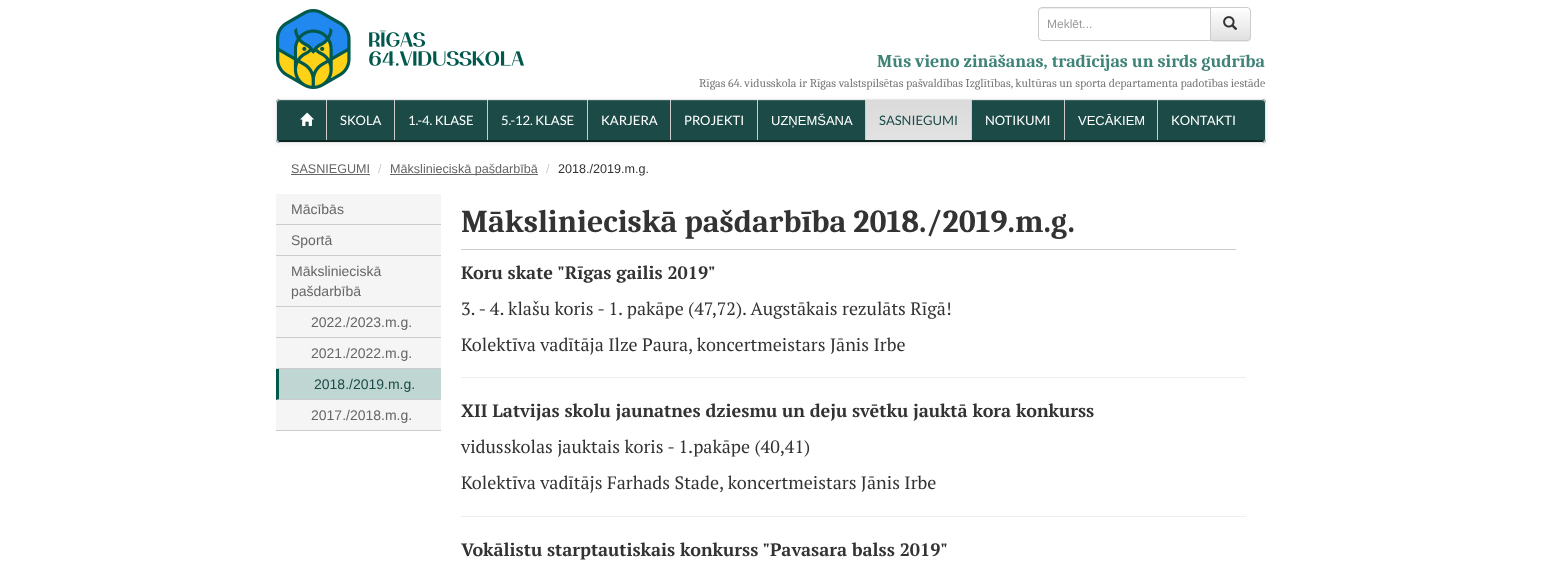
(async () => {
const canvas = document.querySelector("canvas")
canvas.width = 1541
canvas.height = 562
const c = canvas.getContext("2d")
c.miterLimit = 4
c.fontKerning = "normal"
function T(s,x,y){c.fillText(s,x,y)}
function R(x,y,w,h){c.fillRect(x,y,w,h)}
function Q(x,y,w,h,r){c.beginPath();c.roundRect(x,y,w,h,r);c.fill()}
async function I(src,x,y,w,h){const img=new Image();img.src=src;await img.decode();c.drawImage(img,x,y,w,h)}
let gradient, path
c.fillStyle="#fff"
R(0,0,1541,562)
await I("1.png",276,9,248,80)
c.fillStyle="#ececec"
path = new Path2D("M1042 9h168v-1h-169c-2 0-2 2-2 4c0-2 1-3 3-3z")
c.fill(path)
c.beginPath()
c.roundRect(1038.5,7.5,172,33,[3.5,0,0,3.5])
c.strokeStyle="#ccc"
c.stroke()
c.font="12px Liberation Sans"
c.fillStyle="#999"
T("Meklēt...",1047,28)
c.fillStyle="#00000012"
c.filter="blur(0.5px)"
c.beginPath()
c.roundRect(1210,8,41,34,4)
c.fill()
c.filter="none"
c.save()
c.beginPath()
c.roundRect(1210,7,41,34,[0,4,4,0])
c.clip()
gradient = c.createLinearGradient(1231,8,1231,40)
gradient.addColorStop(0,"#fff")
gradient.addColorStop(1,"#e0e0e0")
c.fillStyle = gradient
R(1211,8,40,32)
c.restore()
c.beginPath()
c.roundRect(1210.5,7.5,40,33,[0,3.5,3.5,0])
c.stroke()
await I("2.png",1223,16,15,14)
c.font="bold 18px Caladea"
c.fillStyle="#408379"
T("Mūs vieno zināšanas, tradīcijas un sirds gudrība",877,67)
c.font="12px Caladea"
c.fillStyle="#777"
T("Rīgas 64. vidusskola ir Rīgas valstspilsētas pašvaldības Izglītības, kultūras un sporta departamenta padotības iestāde",699,87)
c.fillStyle="#00000012"
c.filter="blur(2.5px)"
c.beginPath()
c.roundRect(276,100,990,44,4)
c.fill()
c.filter="none"
c.fillStyle="#1b4a47"
Q(276,99,990,44,4)
c.fillStyle="#3d6563"
path = new Path2D("M280 101h982c2 0 3 1 3 3c0-2-1-4-3-4h-982c-2 0-3 2-3 4c0-2 1-3 3-3z")
c.fill(path)
c.beginPath()
c.roundRect(276.5,99.5,989,43,3.5)
c.strokeStyle="#e7e7e7"
c.stroke()
c.fillStyle="#00000080"
R(279,140,984,2)
c.fillStyle="#ccc"
R(326,100,1,40)
await I("3.png",300,112,14,14)
R(394,100,1,40)
c.font="13px Lato"
c.fillStyle="#fff"
T("SKOLA",340,125)
c.fillStyle="#ccc"
R(487,100,1,40)
c.fillStyle="#fff"
T("1.-4. KLASE",408,125)
c.fillStyle="#ccc"
R(587,100,1,40)
c.fillStyle="#fff"
T("5.-12. KLASE",501,125)
c.fillStyle="#ccc"
R(670,100,1,40)
c.fillStyle="#fff"
T("KARJERA",601,125)
c.fillStyle="#ccc"
R(757,100,1,40)
c.fillStyle="#fff"
T("PROJEKTI",684,125)
c.fillStyle="#ccc"
R(865,100,1,40)
c.font="13px Liberation Sans"
c.fillStyle="#fff"
T("UZŅEMŠANA",771,125)
gradient = c.createLinearGradient(919,100,919,140)
gradient.addColorStop(0,"#dbdbdb")
gradient.addColorStop(1,"#e2e2e2")
c.fillStyle = gradient
R(866,100,105,40)
c.fillStyle="#ccc"
R(971,100,1,40)
c.font="13px Lato"
c.fillStyle="#1b4a47"
T("SASNIEGUMI",879,125)
c.fillStyle="#ccc"
R(1064,100,1,40)
c.fillStyle="#fff"
T("NOTIKUMI",985,125)
c.fillStyle="#ccc"
R(1157,100,1,40)
c.font="13px Liberation Sans"
c.fillStyle="#fff"
T("VECĀKIEM",1078,125)
c.font="13px Lato"
T("KONTAKTI",1171,125)
c.font="12.6px Liberation Sans"
c.fillStyle="#666"
T("SASNIEGUMI",291,173)
R(291,174,79,1)
c.fillStyle="#ccc"
T("/",378,173)
c.fillStyle="#666"
R(390,174,148,1)
T("Mākslinieciskā pašdarbībā",390,173)
c.fillStyle="#ccc"
T("/",546,173)
c.fillStyle="#333"
T("2018./2019.m.g.",558,173)
c.fillStyle="#f5f5f5"
R(276,194,165,30)
c.fillStyle="#ccc"
R(276,224,165,1)
c.font="14px Liberation Sans"
c.fillStyle="#666"
T("Mācībās",291,214)
c.fillStyle="#f5f5f5"
R(276,225,165,30)
c.fillStyle="#ccc"
R(276,255,165,1)
c.fillStyle="#666"
T("Sportā",291,245)
c.fillStyle="#f5f5f5"
R(276,256,165,50)
c.fillStyle="#ccc"
R(276,306,165,1)
c.fillStyle="#666"
T("Mākslinieciskā",291,276)
T("pašdarbībā",291,296)
c.fillStyle="#f5f5f5"
R(276,307,165,30)
c.fillStyle="#ccc"
R(276,337,165,1)
c.fillStyle="#666"
T("2022./2023.m.g.",311,327)
c.fillStyle="#f5f5f5"
R(276,338,165,30)
c.fillStyle="#ccc"
R(276,368,165,1)
c.fillStyle="#666"
T("2021./2022.m.g.",311,358)
c.fillStyle="#bfd6d2"
R(276,369,165,31)
c.fillStyle="#ccc"
path = new Path2D("M441 400h-165l3-1h162z")
c.fill(path)
c.fillStyle="#00594c"
path = new Path2D("M276 400v-31h3v30z")
c.fill(path)
c.fillStyle="#1b4a47"
T("2018./2019.m.g.",314,389)
c.fillStyle="#f5f5f5"
R(276,400,165,30)
c.fillStyle="#ccc"
R(276,430,165,1)
c.fillStyle="#666"
T("2017./2018.m.g.",311,420)
c.fillStyle="#ccc"
R(461,249,775,1)
c.font="bold 32px Caladea"
c.fillStyle="#333"
T("Mākslinieciskā pašdarbība 2018./2019.m.g.",461,232)
c.font="bold 18px PT Serif"
T("Koru skate \"Rīgas gailis 2019\"",461,279)
c.font="18px PT Serif"
T("3. - 4. klašu koris - 1. pakāpe (47,72). Augstākais rezulāts Rīgā!",461,315)
T("Kolektīva vadītāja Ilze Paura, koncertmeistars Jānis Irbe",461,351)
c.fillStyle="#eee"
R(461,377,785,1)
c.font="bold 18px PT Serif"
c.fillStyle="#333"
T("XII Latvijas skolu jaunatnes dziesmu un deju svētku jauktā kora konkurss",461,417)
c.font="18px PT Serif"
T("vidusskolas jauktais koris - 1.pakāpe (40,41)",461,453)
T("Kolektīva vadītājs Farhads Stade, koncertmeistars Jānis Irbe",461,489)
c.fillStyle="#eee"
R(461,516,785,1)
c.font="bold 18px PT Serif"
c.fillStyle="#333"
T("Vokālistu starptautiskais konkurss \"Pavasara balss 2019\"",461,556)
})()
